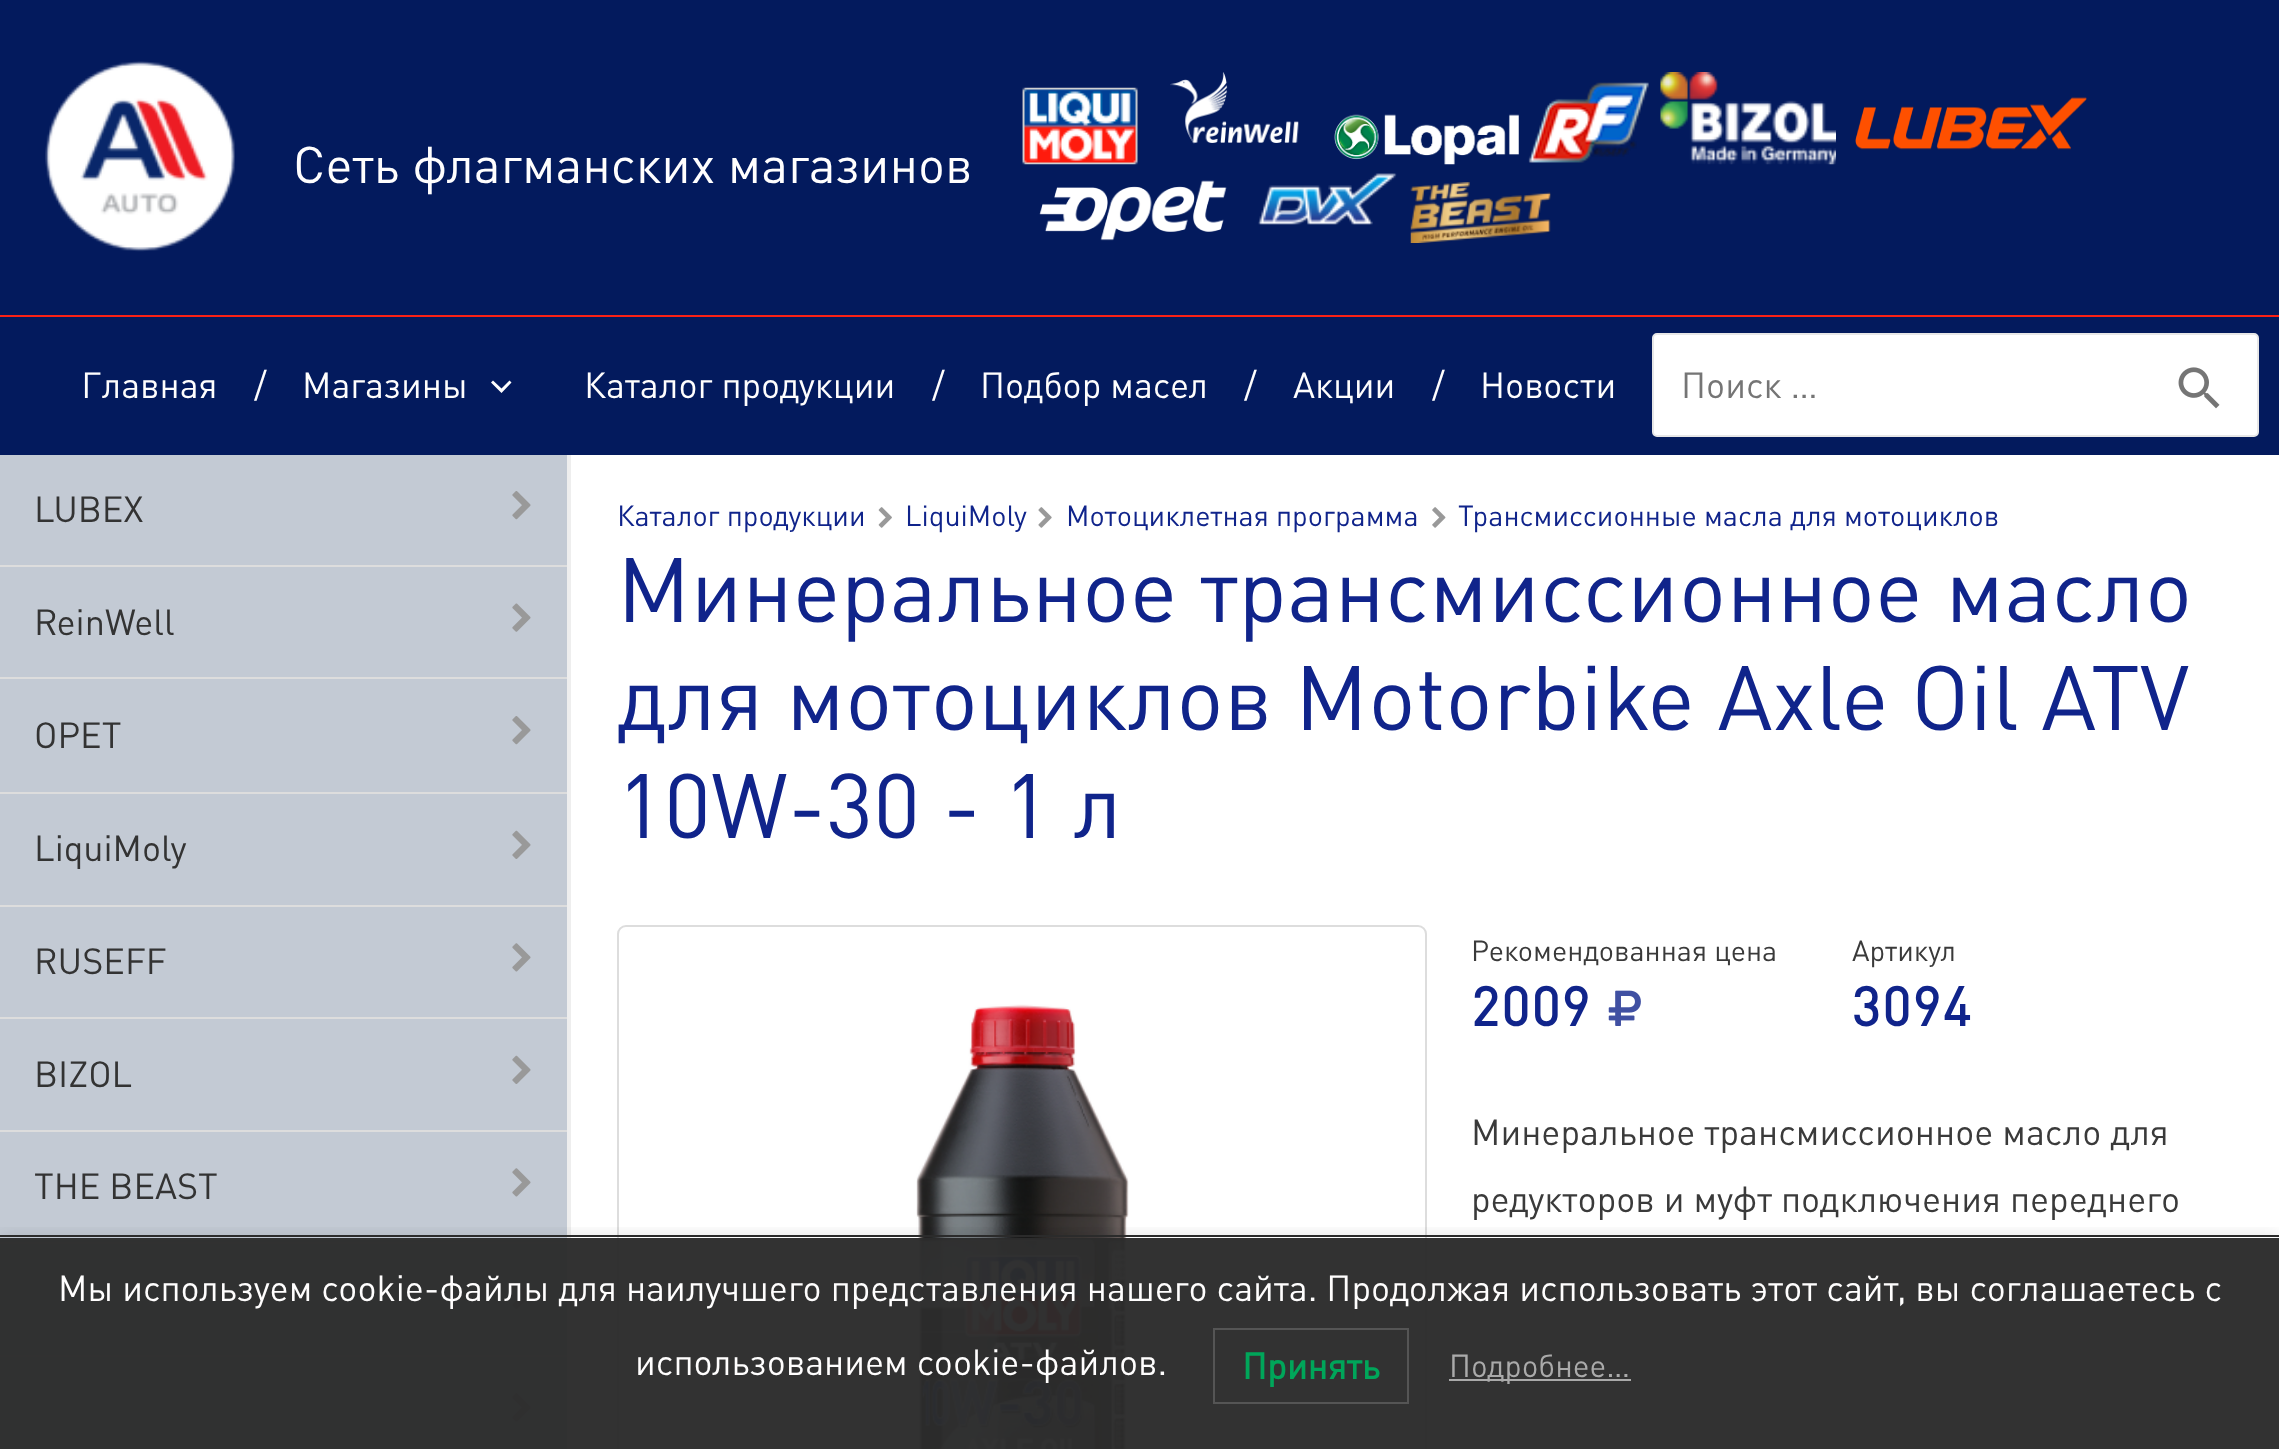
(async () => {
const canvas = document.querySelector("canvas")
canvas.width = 2279
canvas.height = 1449
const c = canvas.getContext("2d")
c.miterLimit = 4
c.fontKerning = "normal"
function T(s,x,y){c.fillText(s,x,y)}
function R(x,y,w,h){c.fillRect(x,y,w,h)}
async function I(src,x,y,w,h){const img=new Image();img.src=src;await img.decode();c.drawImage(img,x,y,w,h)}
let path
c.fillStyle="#fff"
R(0,0,2279,1449)
c.fillStyle="#031a5d"
R(0,0,2279,315)
c.fillStyle="#fb2115"
R(0,315,2279,2)
await I("1.png",45,61,190,191)
c.font="51px DIN"
c.fillStyle="#fffefe"
T("Сеть флагманских магазинов",293,183)
await I("2.png",1022,87,116,78)
await I("3.png",1170,72,129,72)
await I("4.png",1334,114,185,51)
await I("5.png",1528,82,121,81)
await I("6.png",1660,72,176,93)
await I("7.png",1855,97,232,53)
await I("8.png",1039,180,188,61)
await I("9.png",1258,173,139,52)
await I("10.png",1410,182,141,61)
c.fillStyle="#031a5d"
R(0,317,2279,138)
c.font="36px DIN"
c.fillStyle="#fffefe"
T("Главная",81,398)
T("/",254,398)
T("Магазины",302,398)
path = new Path2D("M491 382.5l10.5 10.5l10-10.5l-2-2l-8 8l-8.5-8z")
c.fill(path)
T("Каталог продукции",584,398)
T("/",932,398)
T("Подбор масел",980,398)
T("/",1244,398)
T("Акции",1293,398)
T("/",1432,398)
T("Новости",1480,398)
c.fillStyle="#fff"
c.beginPath()
c.roundRect(1653,334,605,102,4)
c.fill()
c.strokeStyle="#e7e7e7"
c.lineWidth=2
c.stroke()
c.fillStyle="#757575"
T("Поиск …",1681,398)
await I("11.png",2178,367,42,42)
c.fillStyle="#c3cad4"
R(0,455,567,994)
c.fillStyle="#eee"
R(567,455,4,994)
c.fillStyle="#ddd"
R(0,565,567,2)
c.fillStyle="#333"
T("LUBEX",34,522)
await I("12.png",512,491,19,29)
c.fillStyle="#ddd"
R(0,677,567,2)
c.fillStyle="#333"
T("ReinWell",34,635)
await I("13.png",512,603,19,29)
c.fillStyle="#ddd"
R(0,792,567,2)
c.fillStyle="#333"
T("OPET",34,748)
await I("12.png",512,716,19,29)
c.fillStyle="#ddd"
R(0,905,567,2)
c.fillStyle="#333"
T("LiquiMoly",34,861)
await I("14.png",512,830,19,29)
c.fillStyle="#ddd"
R(0,1017,567,2)
c.fillStyle="#333"
T("RUSEFF",34,974)
await I("15.png",512,943,19,29)
c.fillStyle="#ddd"
R(0,1130,567,2)
c.fillStyle="#333"
T("BIZOL",34,1087)
await I("14.png",512,1055,19,29)
c.fillStyle="#ddd"
R(0,1242,567,2)
c.fillStyle="#333"
T("THE BEAST",34,1199)
await I("15.png",512,1168,19,29)
c.fillStyle="#ddd"
R(0,1355,567,2)
await I("14.png",512,1280,19,29)
await I("15.png",512,1393,19,29)
c.font="28.75px DIN"
c.fillStyle="#10248b"
T("Каталог продукции",617,526)
await I("16.png",878,507,14,21)
T("LiquiMoly",905,526)
await I("17.png",1038,507,14,21)
T("Мотоциклетная программа",1066,526)
await I("18.png",1432,507,14,21)
T("Трансмиссионные масла для мотоциклов",1458,526)
c.font="90px DIN"
T("Минеральное трансмиссионное масло",617,622)
T("для мотоциклов Motorbike Axle Oil ATV",617,730)
T("10W-30 - 1 л",617,838)
c.beginPath()
c.roundRect(618,926,808,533,8)
c.strokeStyle="#ddd"
c.stroke()
await I("19.png",916,1004,213,445)
c.font="28.75px DIN"
c.fillStyle="#3a3a3a"
T("Рекомендованная цена",1471,961)
c.letterSpacing="2px"
c.font="bold 54px DIN"
c.fillStyle="#10248b"
T("2009",1471,1026)
await I("20.png",1608,990,33,36)
c.letterSpacing="0px"
c.font="28.75px DIN"
c.fillStyle="#3a3a3a"
T("Артикул",1852,961)
c.letterSpacing="2px"
c.font="bold 54px DIN"
c.fillStyle="#10248b"
T("3094",1852,1026)
c.letterSpacing="0px"
c.font="36px DIN"
c.fillStyle="#3a3a3a"
T("Минеральное трансмиссионное масло для",1471,1145)
T("редукторов и муфт подключения переднего",1471,1212)
c.save()
c.beginPath()
c.rect(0,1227,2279,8)
c.clip()
c.fillStyle="#0000001a"
c.filter="blur(9px)"
c.beginPath()
c.rect(0,1235,2279,214)
c.fill()
c.filter="none"
c.restore()
c.fillStyle="#2b2b2bf7"
R(0,1238,2279,211)
c.fillStyle="#2b2b2b"
R(0,1235,2279,2)
c.fillStyle="#fffefe"
T("Мы используем cookie-файлы для наилучшего представления нашего сайта. Продолжая использовать этот сайт, вы соглашаетесь с",58,1301)
T("использованием cookie-файлов.",635,1375)
c.strokeStyle="#555"
c.strokeRect(1214,1329,194,74)
c.font="bold 36px DIN"
c.fillStyle="#00a65a"
T("Принять",1242,1379)
c.fillStyle="#aaa"
R(1449,1379,182,2)
c.font="31.5px DIN"
T("Подробнее…",1449,1377)
})()
